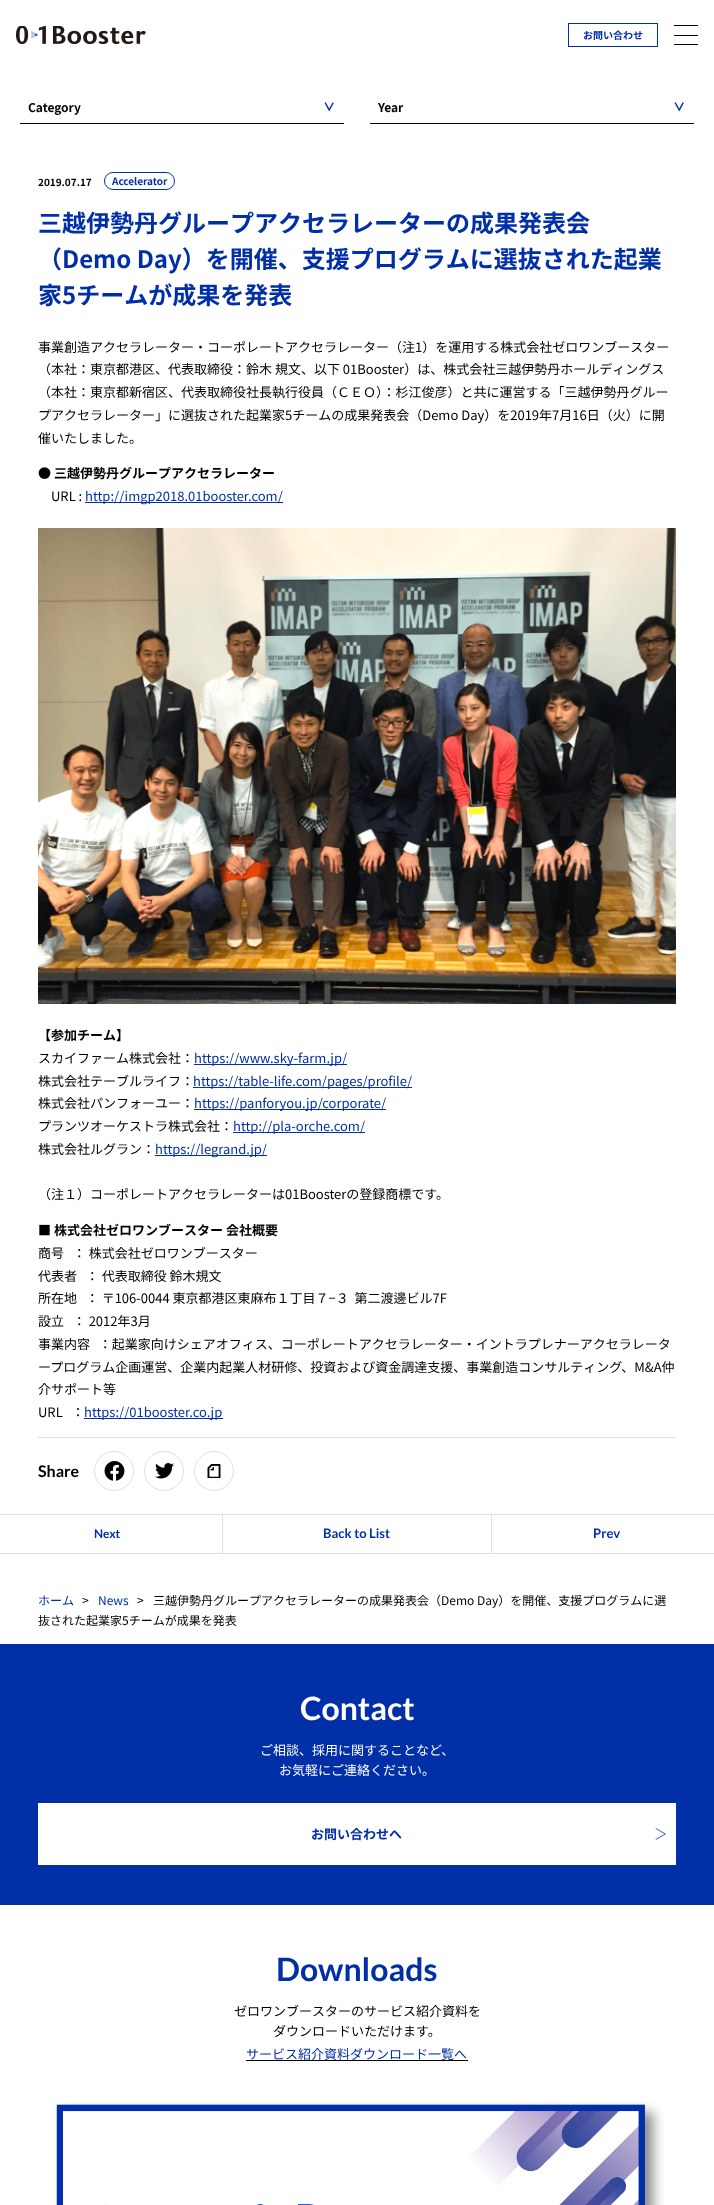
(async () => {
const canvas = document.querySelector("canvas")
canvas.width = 714
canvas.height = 2205
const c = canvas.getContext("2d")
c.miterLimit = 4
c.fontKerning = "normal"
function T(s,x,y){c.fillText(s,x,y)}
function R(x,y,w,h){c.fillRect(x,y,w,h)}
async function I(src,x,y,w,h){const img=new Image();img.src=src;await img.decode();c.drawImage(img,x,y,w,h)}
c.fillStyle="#fff"
R(0,0,714,2205)
await I("1.png",16,26,130,18)
c.strokeStyle="#002fa7"
c.strokeRect(568.5,23.5,89,23)
c.font="bold 10px Noto Sans JP"
c.fillStyle="#002fa7"
T("お問い合わせ",583,39)
c.fillStyle="#000"
R(674,25,24,1)
R(674,35,24,1)
R(674,44,24,1)
R(20,123,324,1)
c.font="bold 12px Noto Sans JP"
T("Category",28,112)
await I("2.png",324,102,10,10)
R(370,123,324,1)
T("Year",378,112)
await I("2.png",674,102,10,10)
c.font="bold 10px Noto Sans JP"
T("2019.07.17",38,186)
c.beginPath()
c.roundRect(104.5,172.5,70,17,8.5)
c.stroke()
c.fillStyle="#002fa7"
T("Accelerator",112,185)
c.font="bold 24px Noto Sans JP"
T("三越伊勢丹グループアクセラレーターの成果発表会",38,232)
T("（Demo Day）を開催、支援プログラムに選抜された起業",38,268)
T("家5チームが成果を発表",38,304)
c.font="13px Noto Sans JP"
c.fillStyle="#000"
T("事業創造アクセラレーター・コーポレートアクセラレーター（注1）を運用する株式会社ゼロワンブースター",38,352)
T("（本社：東京都港区、代表取締役：鈴木 規文、以下 01Booster）は、株式会社三越伊勢丹ホールディングス",38,374)
T("（本社：東京都新宿区、代表取締役社長執行役員（ＣＥＯ）：杉江俊彦）と共に運営する「三越伊勢丹グルー",38,397)
T("プアクセラレーター」に選抜された起業家5チームの成果発表会（Demo Day）を2019年7月16日（火）に開",38,420)
T("催いたしました。",38,443)
c.font="bold 13px Noto Sans JP"
T("● 三越伊勢丹グループアクセラレーター",38,478)
c.font="13px Noto Sans JP"
T("URL :",51,501)
c.fillStyle="#002fa7"
R(85,502,198,1)
T("http://imgp2018.01booster.com/",85,501)
await I("3.png",38,528,638,476)
c.font="bold 13px Noto Sans JP"
c.fillStyle="#000"
T("【参加チーム】",38,1040)
c.font="13px Noto Sans JP"
T("スカイファーム株式会社：",38,1063)
c.fillStyle="#002fa7"
R(194,1064,153,1)
T("https://www.sky-farm.jp/",194,1063)
c.fillStyle="#000"
T("株式会社テーブルライフ：",38,1086)
c.fillStyle="#002fa7"
R(193,1087,219,1)
T("https://table-life.com/pages/profile/",193,1086)
c.fillStyle="#000"
T("株式会社パンフォーユー：",38,1108)
c.fillStyle="#002fa7"
R(194,1109,192,1)
T("https://panforyou.jp/corporate/",194,1108)
c.fillStyle="#000"
T("プランツオーケストラ株式会社：",38,1131)
c.fillStyle="#002fa7"
R(233,1132,132,1)
T("http://pla-orche.com/",233,1131)
c.fillStyle="#000"
T("株式会社ルグラン：",38,1154)
c.fillStyle="#002fa7"
R(155,1155,112,1)
T("https://legrand.jp/",155,1154)
c.fillStyle="#000"
T("（注１）コーポレートアクセラレーターは01Boosterの登録商標です。",38,1199)
c.font="bold 13px Noto Sans JP"
T("■ 株式会社ゼロワンブースター 会社概要",38,1235)
c.font="13px Noto Sans JP"
T("商号   ： 株式会社ゼロワンブースター",38,1258)
T("代表者   ： 代表取締役 鈴木規文",38,1281)
T("所在地   ： 〒106-0044 東京都港区東麻布１丁目７−３  第二渡邊ビル7F",38,1303)
T("設立   ： 2012年3月",38,1326)
T("事業内容   ：起業家向けシェアオフィス、コーポレートアクセラレーター・イントラプレナーアクセラレータ",38,1349)
T("ープログラム企画運営、企業内起業人材研修、投資および資金調達支援、事業創造コンサルティング、M&A仲",38,1372)
T("介サポート等",38,1394)
T("URL   ：",38,1417)
c.fillStyle="#002fa7"
R(84,1418,139,1)
T("https://01booster.co.jp",84,1417)
c.fillStyle="#d9e0f2"
R(38,1437,638,1)
c.font="bold 16px Lato"
c.fillStyle="#000"
T("Share",38,1477)
c.beginPath()
c.arc(114,1471,19.5,0,7)
c.strokeStyle="#d9e0f2"
c.stroke()
await I("4.png",104,1461,21,20)
c.beginPath()
c.arc(164,1471,19.5,0,7)
c.stroke()
await I("5.png",155,1463,19,16)
c.beginPath()
c.arc(214,1471,19.5,0,7)
c.stroke()
await I("6.png",207,1464,14,14)
c.fillStyle="#d9e0f2"
R(0,1514,714,1)
R(0,1553,714,1)
R(222,1515,1,38)
c.font="bold 12px Lato"
c.fillStyle="#002fa7"
T("Next",94,1538)
c.font="bold 13px Lato"
T("Back to List",323,1538)
c.fillStyle="#d9e0f2"
R(491,1515,1,38)
c.fillStyle="#002fa7"
T("Prev",593,1538)
c.font="12px Noto Sans JP"
T("ホーム",38,1605)
c.fillStyle="#000"
T(">",82,1605)
c.fillStyle="#002fa7"
T("News",98,1605)
c.fillStyle="#000"
T(">",137,1605)
T("三越伊勢丹グループアクセラレーターの成果発表会（Demo Day）を開催、支援プログラムに選",153,1605)
T("抜された起業家5チームが成果を発表",38,1625)
c.fillStyle="#002fa7"
R(0,1644,714,261)
c.font="bold 32px Lato"
c.fillStyle="#fff"
T("Contact",300,1720)
c.font="13px Noto Sans JP"
T("ご相談、採用に関することなど、",260,1755)
T("お気軽にご連絡ください。",279,1775)
R(38,1803,638,62)
c.font="bold 13px Noto Sans JP"
c.fillStyle="#002fa7"
T("お問い合わせへ",311,1839)
await I("7.png",655,1828,11,12)
c.font="bold 32px Lato"
T("Downloads",276,1981)
c.font="13px Noto Sans JP"
c.fillStyle="#000"
T("ゼロワンブースターのサービス紹介資料を",234,2016)
T("ダウンロードいただけます。",273,2036)
R(246,2060,222,1)
c.fillStyle="#002fa7"
T("サービス紹介資料ダウンロード一覧へ",246,2059)
await I("8.png",54,2101,610,104)
})()
